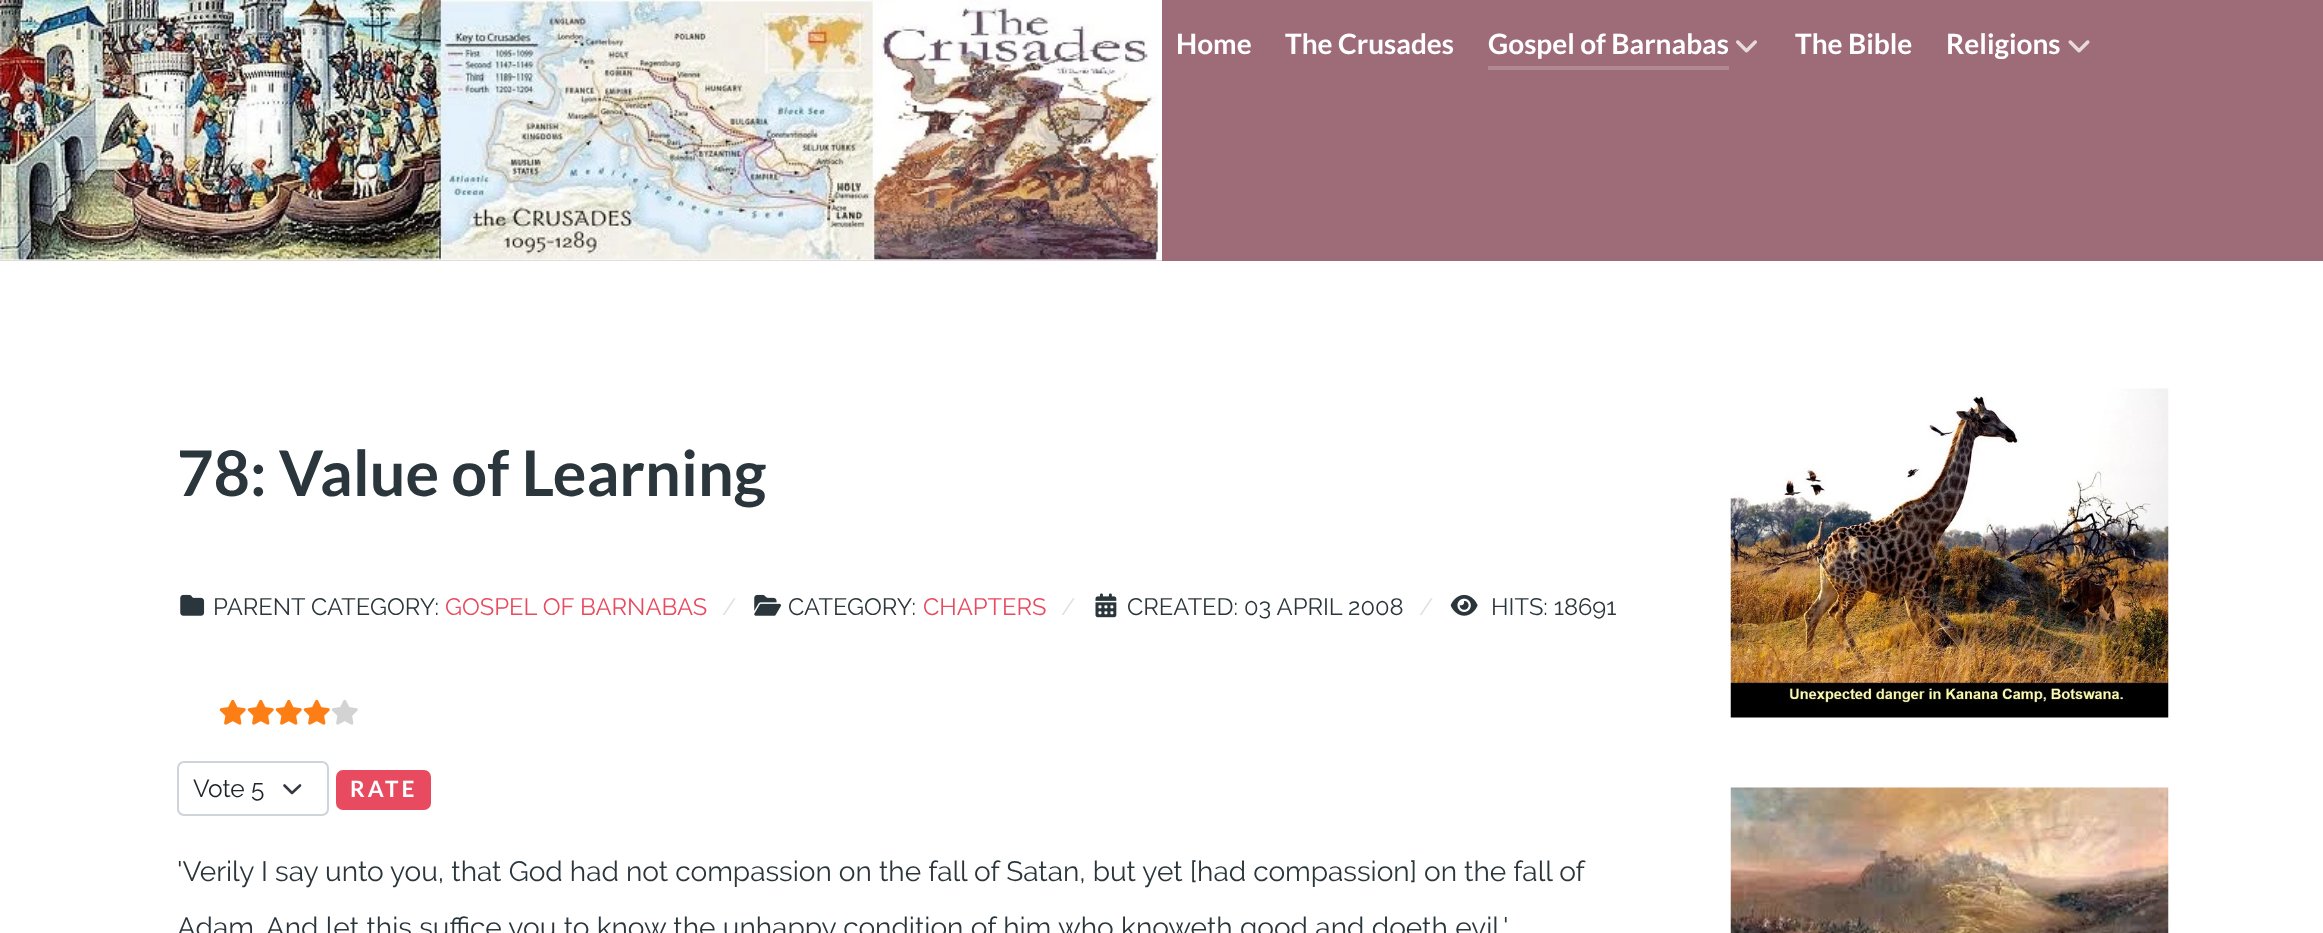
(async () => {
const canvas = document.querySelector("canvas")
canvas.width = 2323
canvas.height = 933
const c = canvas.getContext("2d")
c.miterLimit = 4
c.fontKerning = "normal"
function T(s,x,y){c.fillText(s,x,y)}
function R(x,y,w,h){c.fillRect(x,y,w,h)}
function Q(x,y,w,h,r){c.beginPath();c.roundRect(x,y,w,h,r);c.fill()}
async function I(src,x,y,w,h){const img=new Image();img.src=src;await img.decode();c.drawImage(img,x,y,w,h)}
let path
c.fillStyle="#fff"
R(0,0,2323,933)
c.fillStyle="#9e6b79"
R(0,0,2323,261)
await I("1.png",0,0,1162,261)
c.font="bold 28px Lato"
c.fillStyle="#fff"
T("Home",1176,54)
T("The Crusades",1285,54)
c.fillStyle="#b18994"
R(1488,66,241,4)
c.fillStyle="#fff"
T("Gospel of Barnabas",1488,54)
await I("2.png",1736,40,21,13)
T("The Bible",1795,54)
T("Religions",1946,54)
await I("3.png",2068,40,22,13)
c.font="bold 63px Lato"
c.fillStyle="#2a363b"
T("78: Value of Learning",177,496)
await I("4.png",180,594,25,22)
c.font="23.75px Raleway"
T("PARENT CATEGORY:",213,615)
c.fillStyle="#e84a5f"
T("GOSPEL OF BARNABAS",445,615)
c.fillStyle="#e0e0e5"
T("/",722,615)
await I("5.png",754,594,27,22)
c.fillStyle="#2a363b"
T("CATEGORY:",788,615)
c.fillStyle="#e84a5f"
T("CHAPTERS",923,615)
c.fillStyle="#e0e0e5"
T("/",1061,615)
await I("6.png",1095,593,22,25)
c.fillStyle="#2a363b"
T("CREATED: 03 APRIL 2008",1127,615)
c.fillStyle="#e0e0e5"
T("/",1419,615)
await I("7.png",1450,594,28,22)
c.fillStyle="#2a363b"
T("HITS: 18691",1491,615)
await I("8.png",219,699,27,26)
await I("8.png",247,699,27,26)
await I("8.png",275,699,27,26)
await I("8.png",303,699,27,26)
await I("9.png",331,699,27,26)
path = new Path2D("M284.5 785.5l7.5 7.5l8-7.5")
c.strokeStyle="#343a40"
c.lineWidth=2.6
c.lineCap="round"
c.lineJoin="round"
c.stroke(path)
c.beginPath()
c.roundRect(178,762,150,53,6)
c.strokeStyle="#ced4da"
c.lineWidth=2
c.lineJoin="miter"
c.stroke()
c.font="24.5px Raleway"
c.fillStyle="#212529"
T("Vote 5",193,797)
c.fillStyle="#e84a5f"
Q(336,770,95,40,7)
c.letterSpacing="3px"
c.font="bold 22.5px Lato"
c.fillStyle="#fff"
T("RATE",350,797)
c.letterSpacing="0px"
c.font="28px Raleway"
c.fillStyle="#2a363b"
T("'Verily I say unto you, that God had not compassion on the fall of Satan, but yet [had compassion] on the fall of",177,881)
c.wordSpacing="0.25px"
T("Adam. And let this suffice you to know the unhappy condition of him who knoweth good and doeth evil.'",177,937)
await I("10.png",1730,388,439,330)
await I("11.png",1730,787,439,146)
})()
